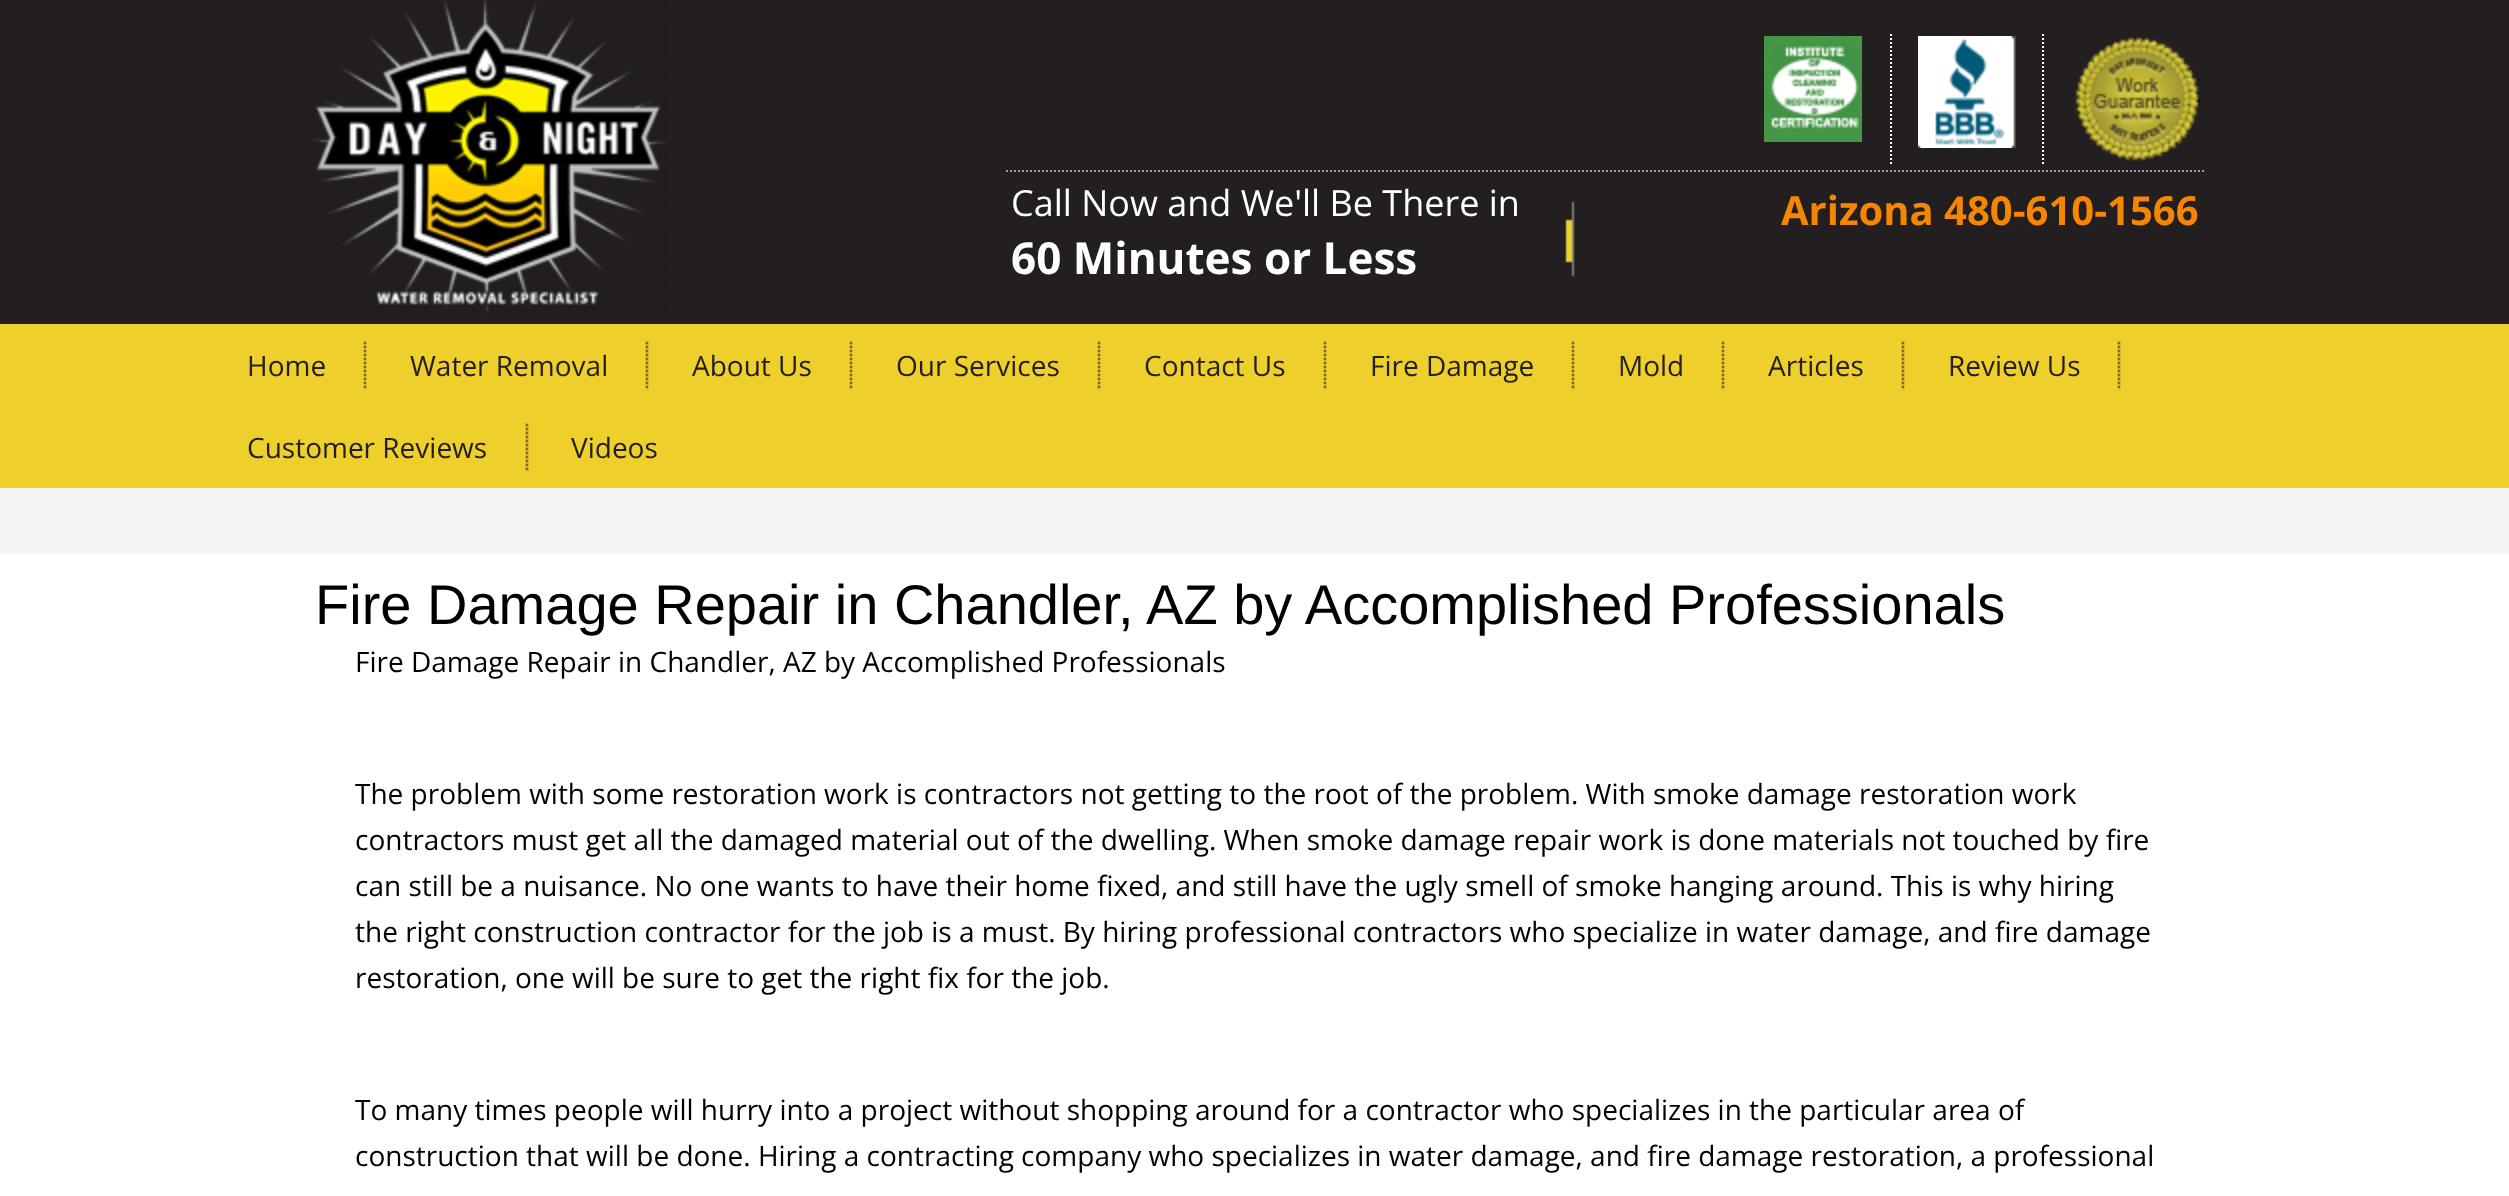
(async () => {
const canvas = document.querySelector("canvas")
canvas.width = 2509
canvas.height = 1196
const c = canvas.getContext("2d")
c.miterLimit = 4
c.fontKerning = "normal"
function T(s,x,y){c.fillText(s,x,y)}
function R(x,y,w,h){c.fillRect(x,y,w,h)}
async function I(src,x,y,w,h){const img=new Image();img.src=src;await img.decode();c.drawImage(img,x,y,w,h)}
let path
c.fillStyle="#fff"
R(0,0,2509,1196)
c.fillStyle="#231f20"
R(0,0,2509,324)
await I("1.png",312,0,355,314)
path = new Path2D("M1006 171h1200")
c.strokeStyle="#9c9a9a"
c.lineWidth=2
c.setLineDash([2,2])
c.stroke(path)
await I("2.png",1764,36,98,106)
path = new Path2D("M2043 34v132")
c.strokeStyle="#fff"
c.stroke(path)
path = new Path2D("M1891 34v132")
c.stroke(path)
await I("3.png",1918,36,98,112)
await I("4.png",2075,37,125,124)
await I("5.png",1565,201,10,76)
c.font="36px Open Sans"
c.fillStyle="#fff"
T("Call Now and We'll Be There in",1011,216)
c.font="bold 44px Open Sans"
T("60 Minutes or Less",1011,274)
c.font="bold 40px Open Sans"
c.fillStyle="#f68602"
T("Arizona 480-610-1566",1781,225)
c.font="56px Liberation Sans"
c.fillStyle="#000"
T("Fire Damage Repair in Chandler, AZ by Accomplished Professionals",315,624)
c.font="28px Open Sans"
T("Fire Damage Repair in Chandler, AZ by Accomplished Professionals",355,672)
T("The problem with some restoration work is contractors not getting to the root of the problem. With smoke damage restoration work",355,804)
T("contractors must get all the damaged material out of the dwelling. When smoke damage repair work is done materials not touched by fire",355,850)
T("can still be a nuisance. No one wants to have their home fixed, and still have the ugly smell of smoke hanging around. This is why hiring",355,896)
T("the right construction contractor for the job is a must. By hiring professional contractors who specialize in water damage, and fire damage",355,942)
T("restoration, one will be sure to get the right fix for the job.",355,988)
T("To many times people will hurry into a project without shopping around for a contractor who specializes in the particular area of",355,1120)
T("construction that will be done. Hiring a contracting company who specializes in water damage, and fire damage restoration, a professional",355,1166)
c.fillStyle="#efcf2b"
R(0,324,2509,164)
await I("6.png",363,341,4,48)
c.fillStyle="#221f1f"
T("Home",247,376)
await I("6.png",645,341,4,48)
T("Water Removal",410,376)
await I("6.png",849,341,4,48)
T("About Us",692,376)
await I("6.png",1097,341,4,48)
T("Our Services",896,376)
await I("6.png",1323,341,4,48)
T("Contact Us",1144,376)
await I("6.png",1571,341,4,48)
T("Fire Damage",1370,376)
await I("6.png",1721,341,4,48)
T("Mold",1618,376)
await I("6.png",1901,341,4,48)
T("Articles",1768,376)
await I("6.png",2117,341,4,48)
T("Review Us",1948,376)
await I("6.png",525,423,4,48)
T("Customer Reviews",247,458)
T("Videos",571,458)
c.fillStyle="#f5f5f5"
R(0,488,2509,66)
})()
